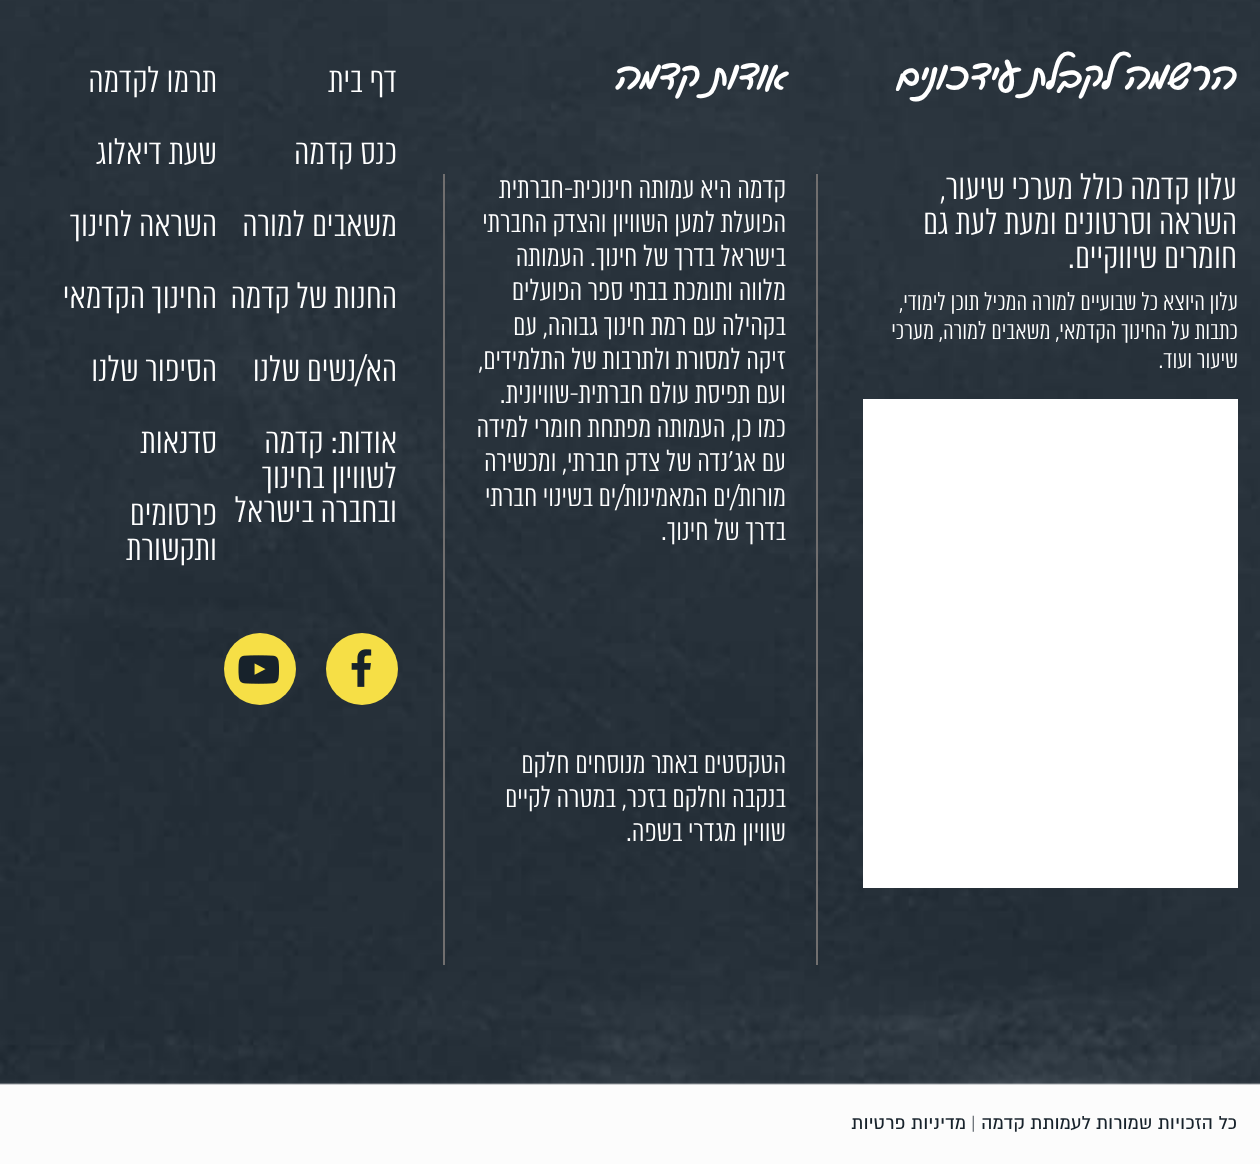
(async () => {
const canvas = document.querySelector("canvas")
canvas.width = 1260
canvas.height = 1164
const c = canvas.getContext("2d")
c.miterLimit = 4
c.fontKerning = "normal"
function T(s,x,y){c.fillText(s,x,y)}
function R(x,y,w,h){c.fillRect(x,y,w,h)}
async function I(src,x,y,w,h){const img=new Image();img.src=src;await img.decode();c.drawImage(img,x,y,w,h)}
c.fillStyle="#fff"
R(0,0,1260,1164)
await I("1.png",0,0,1260,1085)
c.direction="rtl"
c.font="39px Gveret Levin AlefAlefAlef"
T("הרשמה לקבלת עידכונים",1237,89)
c.font="300 34.5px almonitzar"
T("עלון קדמה כולל מערכי שיעור,",1237,199)
T("השראה וסרטונים ומעת לעת גם",1237,234)
T("חומרים שיווקיים.",1237,268)
c.font="300 24px almonitzar"
T("עלון היוצא כל שבועיים למורה המכיל תוכן לימודי,",1238,310)
T("כתבות על החינוך הקדמאי, משאבים למורה, מערכי",1238,339)
T("שיעור ועוד.",1238,368)
R(863,399,375,489)
c.font="39px Gveret Levin AlefAlefAlef"
T("אודות קדמה",788,89)
c.fillStyle="#716f6f"
R(816,174,2,791)
R(443,174,2,791)
c.font="300 28.5px almonitzar"
c.fillStyle="#fff"
T("קדמה היא עמותה חינוכית-חברתית",786,198)
T("הפועלת למען השוויון והצדק החברתי",786,232)
T("בישראל בדרך של חינוך. העמותה",786,266)
T("מלווה ותומכת בבתי ספר הפועלים",786,300)
T("בקהילה עם רמת חינוך גבוהה, עם",786,335)
T("זיקה למסורת ולתרבות של התלמידים,",786,369)
T("ועם תפיסת עולם חברתית-שוויונית.",786,403)
T("כמו כן, העמותה מפתחת חומרי למידה",786,437)
T("עם אג'נדה של צדק חברתי, ומכשירה",786,471)
T("מורות/ים המאמינות/ים בשינוי חברתי",786,506)
T("בדרך של חינוך.",786,540)
T("הטקסטים באתר מנוסחים חלקם",786,773)
T("בנקבה וחלקם בזכר, במטרה לקיים",786,807)
T("שוויון מגדרי בשפה.",786,841)
c.font="300 34.5px almonitzar"
T("דף בית",397,92)
T("תרמו לקדמה",217,92)
T("כנס קדמה",397,164)
T("שעת דיאלוג",217,164)
T("משאבים למורה",397,236)
T("השראה לחינוך",217,236)
T("החנות של קדמה",397,308)
T("החינוך הקדמאי",217,308)
T("הא/נשים שלנו",397,381)
T("הסיפור שלנו",217,381)
T("אודות: קדמה",397,453)
T("לשוויון בחינוך",397,488)
T("ובחברה בישראל",397,522)
T("סדנאות",217,453)
T("פרסומים",217,525)
T("ותקשורת",217,560)
c.fillStyle="#f6df46"
c.beginPath()
c.arc(362,669,36,0,7)
c.fill()
await I("2.png",351,649,21,38)
c.beginPath()
c.arc(260,669,36,0,7)
c.fill()
await I("3.png",238,655,41,29)
c.fillStyle="#fcfcfc"
R(0,1085,1260,79)
c.font="21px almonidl"
c.fillStyle="#17222b"
T("כל הזכויות שמורות לעמותת קדמה |",1237,1129)
T("מדיניות פרטיות",966,1129)
})()
